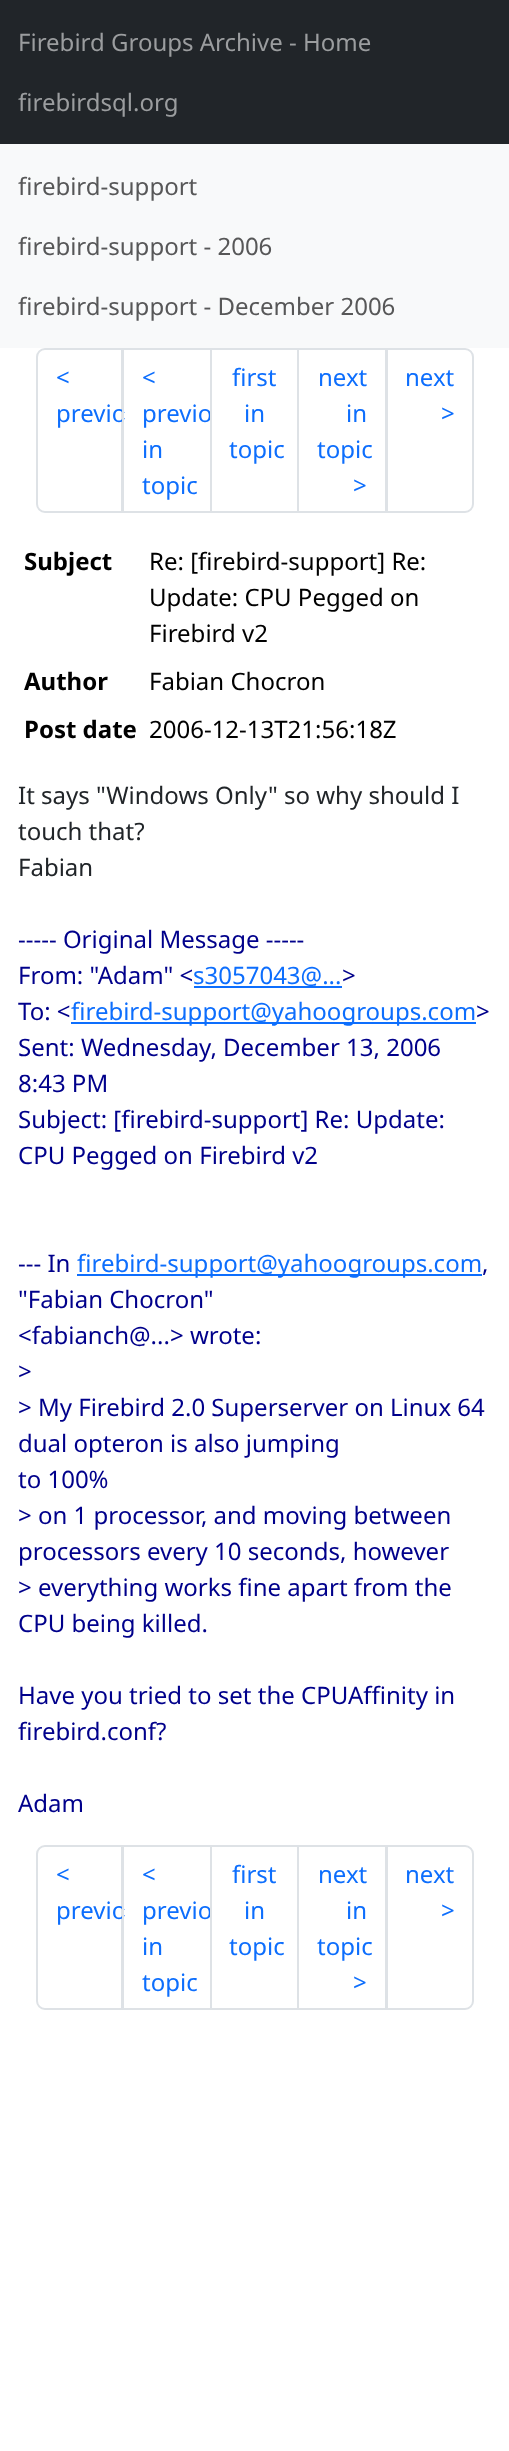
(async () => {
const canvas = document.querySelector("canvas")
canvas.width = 509
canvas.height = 2451
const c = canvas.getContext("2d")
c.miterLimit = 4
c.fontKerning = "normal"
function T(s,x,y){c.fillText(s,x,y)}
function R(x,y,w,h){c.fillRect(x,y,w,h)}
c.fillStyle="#fff"
R(0,0,509,2451)
c.fillStyle="#212529"
R(0,0,509,144)
c.font="24px Noto Sans"
c.fillStyle="#9b9d9f"
T("Firebird Groups Archive - Home",18,51)
T("firebirdsql.org",18,111)
c.fillStyle="#f8f9fa"
R(0,144,509,204)
c.fillStyle="#575758"
T("firebird-support",18,195)
T("firebird-support - 2006",18,255)
T("firebird-support - December 2006",18,315)
c.beginPath()
c.roundRect(37,349,85,163,[8,0,0,8])
c.strokeStyle="#dee2e6"
c.lineWidth=2
c.stroke()
c.fillStyle="#0d6efd"
T("<",56,386)
T("previo",56,422)
c.fillStyle="#fff"
R(124,413,1,5)
c.strokeRect(123,349,88,163)
c.fillStyle="#0d6efd"
T("<",142,386)
T("previo",142,422)
T("in",142,458)
T("topic",142,494)
c.strokeRect(211,349,87,163)
T("first",232,386)
T("in",244,422)
T("topic",229,458)
c.strokeRect(298,349,88,163)
T("next",318,386)
T("in",346,422)
T("topic",317,458)
T(">",353,494)
c.fillStyle="#fff"
c.beginPath()
c.roundRect(387,349,86,163,[0,8,8,0])
c.fill()
c.stroke()
c.fillStyle="#0d6efd"
T("next",405,386)
T(">",441,422)
c.font="bold 24px Noto Sans"
c.fillStyle="#000"
T("Subject",24,570)
c.font="24px Noto Sans"
T("Re: [firebird-support] Re:",149,570)
T("Update: CPU Pegged on",149,606)
T("Firebird v2",149,642)
c.font="bold 24px Noto Sans"
T("Author",24,690)
c.font="24px Noto Sans"
T("Fabian Chocron",149,690)
c.font="bold 24px Noto Sans"
T("Post date",24,738)
c.font="24px Noto Sans"
T("2006-12-13T21:56:18Z",149,738)
c.fillStyle="#212529"
T("It says \"Windows Only\" so why should I",18,804)
T("touch that?",18,840)
T("Fabian",18,876)
c.fillStyle="#00008b"
T("----- Original Message -----",18,948)
T("From: \"Adam\" <",18,984)
c.fillStyle="#0d6efd"
R(194,986,148,2)
T("s3057043@...",193,984)
c.fillStyle="#00008b"
T(">",342,984)
T("To: <",18,1020)
c.fillStyle="#0d6efd"
R(71,1022,405,2)
T("firebird-support@yahoogroups.com",71,1020)
c.fillStyle="#00008b"
T(">",476,1020)
T("Sent: Wednesday, December 13, 2006",18,1056)
T("8:43 PM",18,1092)
T("Subject: [firebird-support] Re: Update:",18,1128)
T("CPU Pegged on Firebird v2",18,1164)
T("--- In",18,1272)
c.fillStyle="#0d6efd"
R(77,1274,405,2)
T("firebird-support@yahoogroups.com",77,1272)
c.fillStyle="#00008b"
T(",",482,1272)
T("\"Fabian Chocron\"",18,1308)
T("<fabianch@...> wrote:",18,1344)
T(">",18,1380)
T("> My Firebird 2.0 Superserver on Linux 64",18,1416)
T("dual opteron is also jumping",18,1452)
T("to 100%",18,1488)
T("> on 1 processor, and moving between",18,1524)
T("processors every 10 seconds, however",18,1560)
T("> everything works fine apart from the",18,1596)
T("CPU being killed.",18,1632)
T("Have you tried to set the CPUAffinity in",18,1704)
T("firebird.conf?",18,1740)
T("Adam",18,1812)
c.beginPath()
c.roundRect(37,1846,85,163,[8,0,0,8])
c.stroke()
c.fillStyle="#0d6efd"
T("<",56,1883)
T("previo",56,1919)
c.fillStyle="#fff"
R(124,1910,1,5)
c.strokeRect(123,1846,88,163)
c.fillStyle="#0d6efd"
T("<",142,1883)
T("previo",142,1919)
T("in",142,1955)
T("topic",142,1991)
c.strokeRect(211,1846,87,163)
T("first",232,1883)
T("in",244,1919)
T("topic",229,1955)
c.strokeRect(298,1846,88,163)
T("next",318,1883)
T("in",346,1919)
T("topic",317,1955)
T(">",353,1991)
c.fillStyle="#fff"
c.beginPath()
c.roundRect(387,1846,86,163,[0,8,8,0])
c.fill()
c.stroke()
c.fillStyle="#0d6efd"
T("next",405,1883)
T(">",441,1919)
})()
